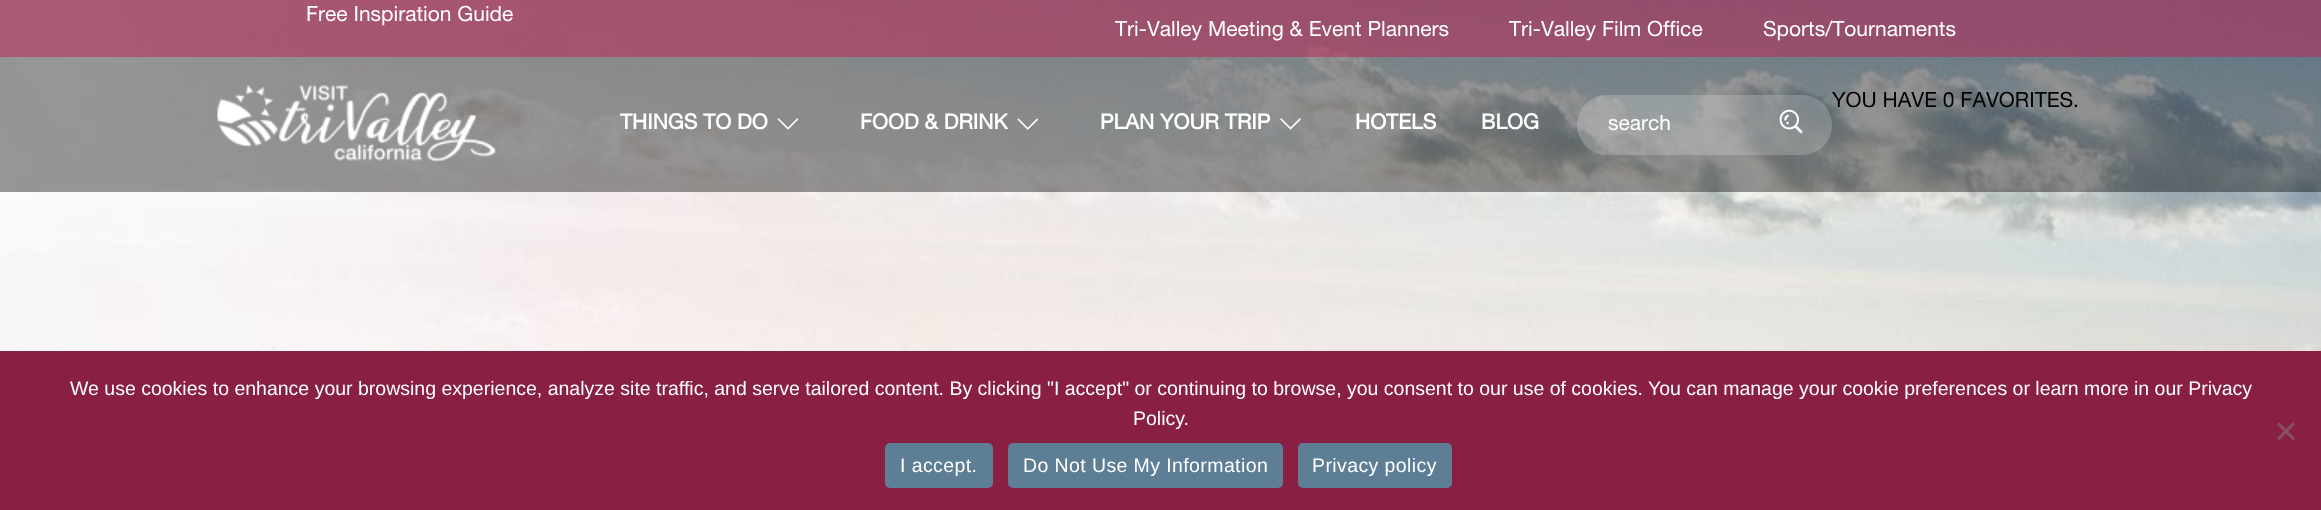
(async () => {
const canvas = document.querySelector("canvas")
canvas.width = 2321
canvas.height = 510
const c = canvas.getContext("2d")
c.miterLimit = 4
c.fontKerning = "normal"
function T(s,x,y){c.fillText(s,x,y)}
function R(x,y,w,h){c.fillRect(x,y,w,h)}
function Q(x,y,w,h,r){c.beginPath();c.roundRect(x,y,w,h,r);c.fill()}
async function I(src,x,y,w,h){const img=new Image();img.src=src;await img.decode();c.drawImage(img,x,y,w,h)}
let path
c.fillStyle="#fff"
R(0,0,2321,510)
await I("1.png",0,0,2321,351)
c.fillStyle="#8b1c40b8"
R(0,0,2321,57)
c.font="21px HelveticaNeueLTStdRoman"
c.fillStyle="#fff"
T("Free Inspiration Guide",306,21)
T("Tri-Valley Meeting & Event Planners",1115,36)
T("Tri-Valley Film Office",1509,36)
T("Sports/Tournaments",1763,36)
c.fillStyle="#00000066"
R(0,57,2321,135)
await I("2.png",217,85,279,77)
c.fillStyle="#ffffff33"
Q(1577,95,255,60,30)
c.fillStyle="#000"
T("YOU HAVE 0 FAVORITES.",1832,107)
c.font="bold 21px HelveticaNeueLTStdRoman"
c.fillStyle="#fff"
T("THINGS TO DO",620,129)
await I("3.png",777,118,22,12)
T("FOOD & DRINK",860,129)
await I("4.png",1017,118,21,12)
T("PLAN YOUR TRIP",1100,129)
await I("5.png",1280,118,21,12)
T("HOTELS",1355,129)
T("BLOG",1481,129)
c.font="21px HelveticaNeueLTStdRoman"
T("search",1608,130)
await I("6.png",1779,109,24,25)
c.fillStyle="#891f42"
R(0,351,2321,159)
c.font="19.5px Liberation Sans"
c.fillStyle="#fff"
T("We use cookies to enhance your browsing experience, analyze site traffic, and serve tailored content. By clicking \"I accept\" or continuing to browse, you consent to our use of cookies. You can manage your cookie preferences or learn more in our Privacy",70,395)
T("Policy.",1133,425)
c.fillStyle="#855061"
path = new Path2D("M2293 422l2 2.5l-16 16l-2-2.5z")
c.fill(path)
path = new Path2D("M2277 424.5l2-2.5l16 16l-2 2.5z")
c.fill(path)
c.fillStyle="#5d7e95"
Q(885,443,108,45,5)
c.letterSpacing="0.4px"
c.fillStyle="#fff"
T("I accept.",900,472)
c.fillStyle="#5d7e95"
Q(1008,443,275,45,5)
c.fillStyle="#fff"
T("Do Not Use My Information",1023,472)
c.fillStyle="#5d7e95"
Q(1298,443,154,45,5)
c.fillStyle="#fff"
T("Privacy policy",1312,472)
})()
